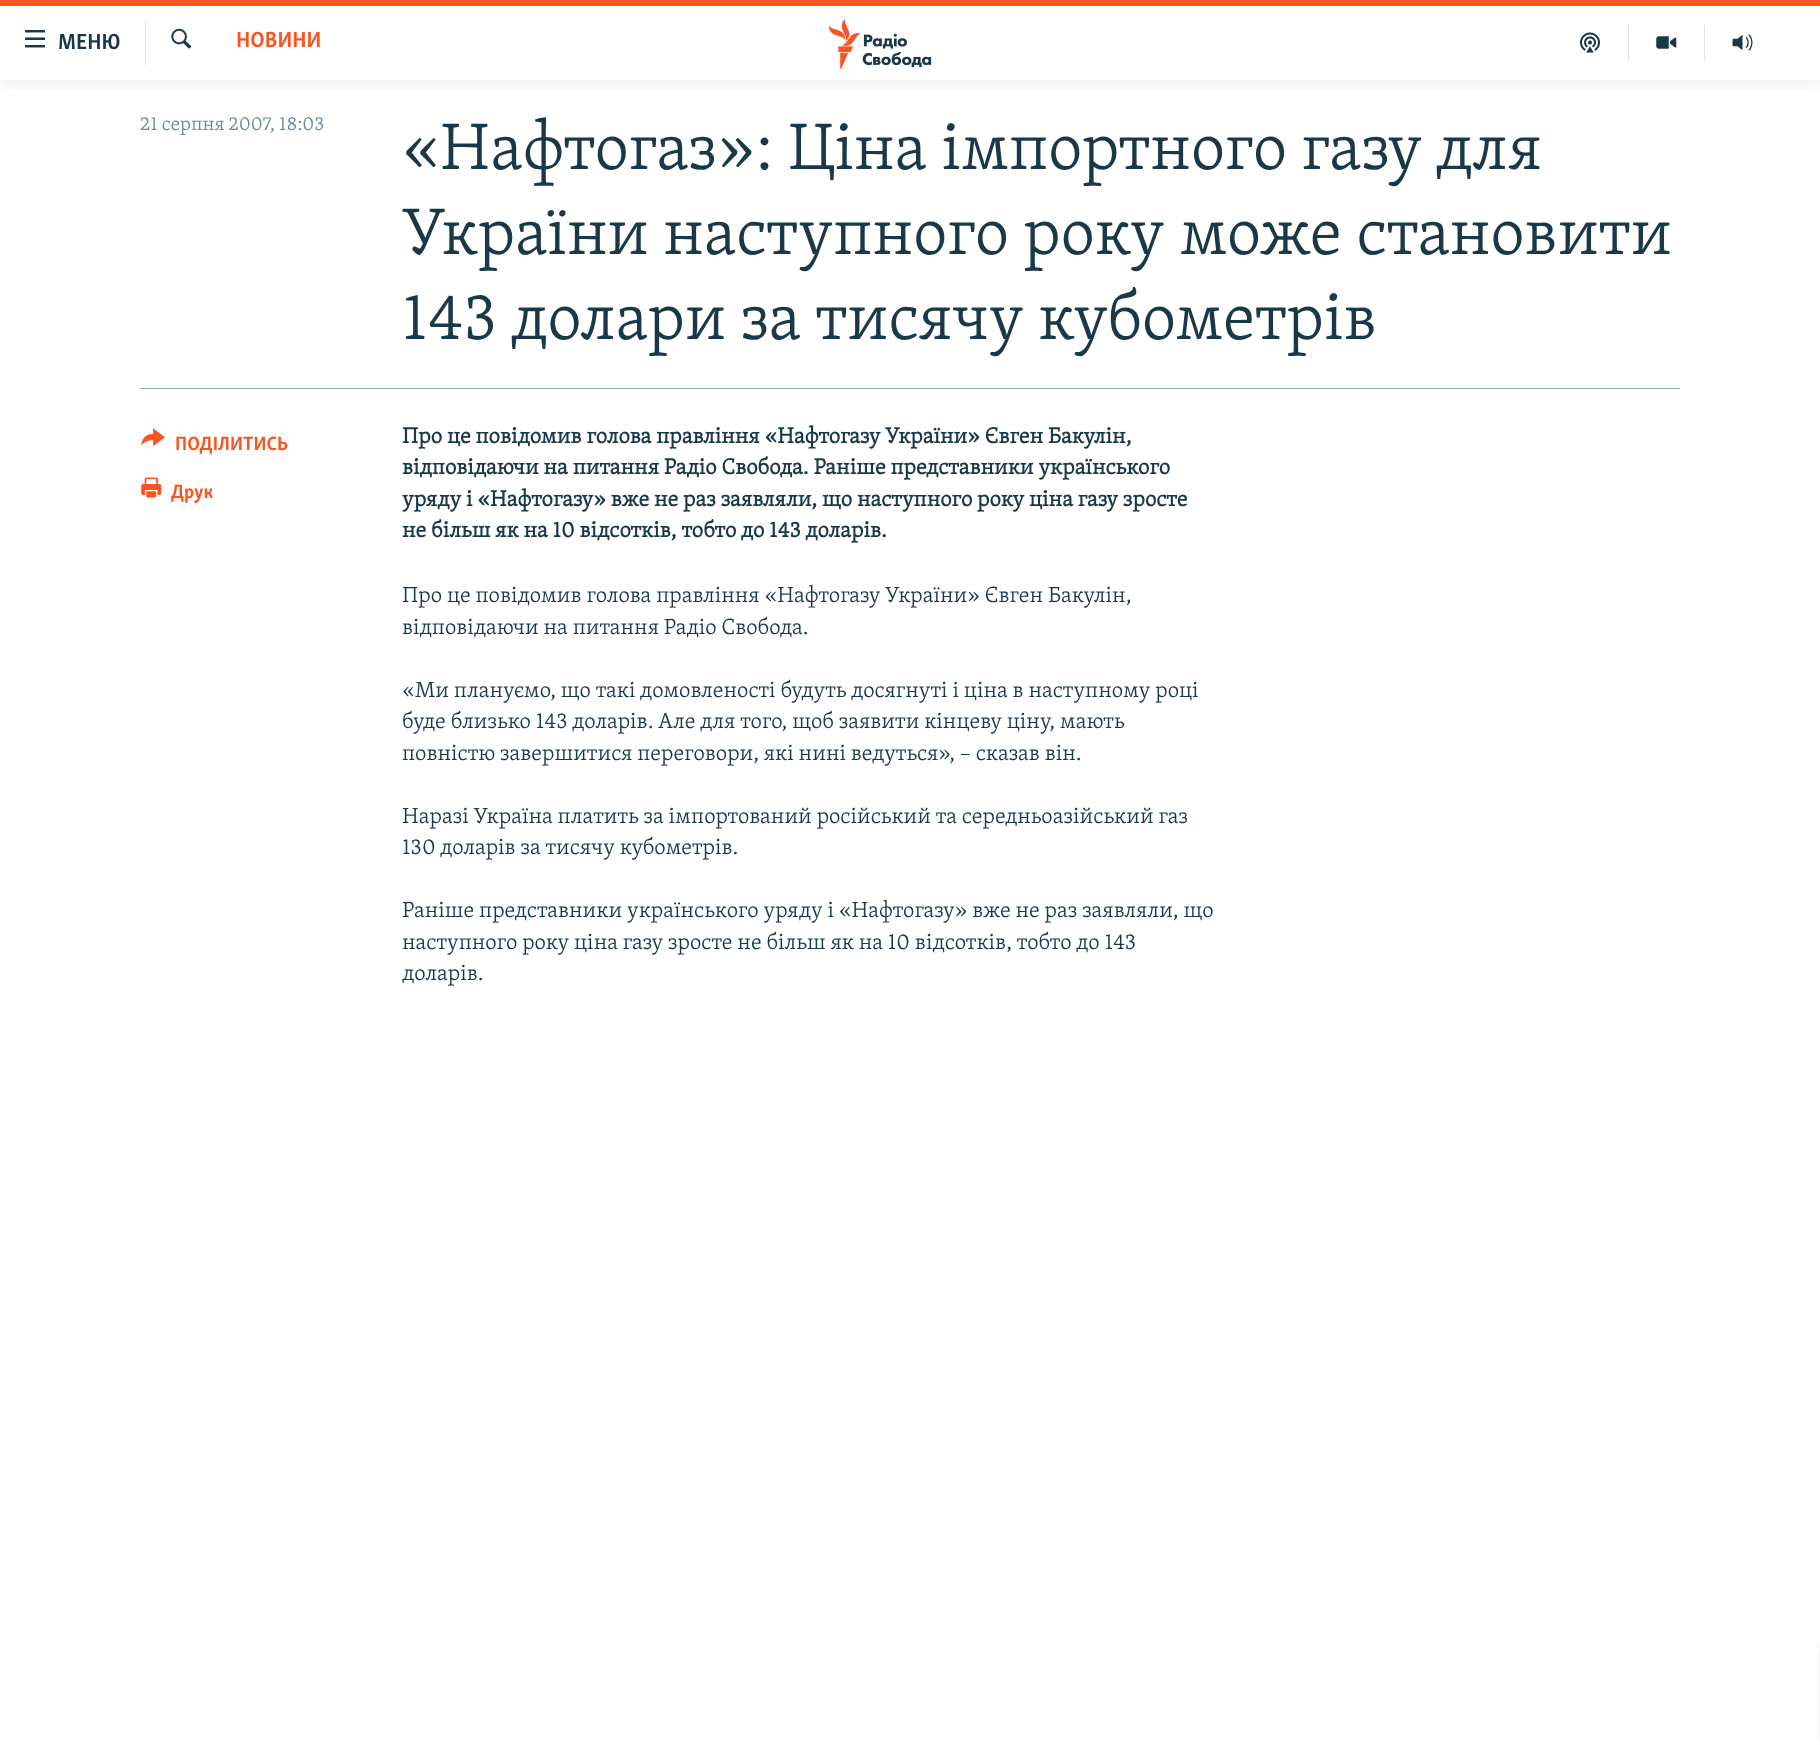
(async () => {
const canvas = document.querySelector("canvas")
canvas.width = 1820
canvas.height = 1745
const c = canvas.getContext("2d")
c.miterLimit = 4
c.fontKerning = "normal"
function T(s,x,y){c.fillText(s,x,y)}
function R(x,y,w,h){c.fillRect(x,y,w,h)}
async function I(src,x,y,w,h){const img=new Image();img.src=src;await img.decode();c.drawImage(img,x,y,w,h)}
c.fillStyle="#fff"
R(0,0,1820,1745)
c.save()
c.beginPath()
c.rect(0,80,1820,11)
c.clip()
c.fillStyle="#0000001a"
c.filter="blur(12.5px)"
c.beginPath()
c.rect(0,0,1820,80)
c.fill()
c.filter="none"
c.restore()
c.fillStyle="#fa5420"
R(0,0,1820,6)
await I("1.png",25,30,20,18)
c.font="bold 22.5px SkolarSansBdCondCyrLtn"
c.fillStyle="#1a3948"
T("МЕНЮ",58,49)
c.fillStyle="#dce4e8"
R(145,21,1,44)
await I("2.png",171,28,21,21)
c.fillStyle="#fa5420"
T("НОВИНИ",236,47)
await I("3.png",829,19,103,50)
c.fillStyle="#dce4e8"
R(1628,25,1,36)
await I("4.png",1580,32,20,21)
R(1704,25,1,36)
await I("5.png",1656,36,21,13)
await I("6.png",1732,34,21,17)
c.font="300 19.75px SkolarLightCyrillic"
c.fillStyle="#678a9b"
T("21 серпня 2007, 18:03",140,130)
c.font="300 67.5px SkolarLightCyrillic"
c.fillStyle="#1a3948"
T("«Нафтогаз»: Ціна імпортного газу для",402,169)
T("України наступного року може становити",402,254)
T("143 долари за тисячу кубометрів",402,339)
c.fillStyle="#95adb9"
R(140,388,1540,1)
await I("7.png",141,428,24,18)
c.font="bold 19.75px SkolarSansBdCondCyrLtn"
c.fillStyle="#fa5420"
T("ПОДІЛИТИСЬ",175,450)
await I("8.png",141,477,21,21)
T("Друк",171,498)
c.font="bold 22.5px SkolarLightCyrillic"
c.fillStyle="#1a3948"
T("Про це повідомив голова правління «Нафтогазу України» Євген Бакулін,",402,443)
T("відповідаючи на питання Радіо Свобода. Раніше представники українського",402,474)
T("уряду і «Нафтогазу» вже не раз заявляли, що наступного року ціна газу зросте",402,506)
T("не більш як на 10 відсотків, тобто до 143 доларів.",402,537)
c.font="300 22.5px SkolarLightCyrillic"
T("Про це повідомив голова правління «Нафтогазу України» Євген Бакулін,",402,602)
T("відповідаючи на питання Радіо Свобода.",402,634)
T("«Ми плануємо, що такі домовленості будуть досягнуті і ціна в наступному році",402,697)
T("буде близько 143 доларів. Але для того, щоб заявити кінцеву ціну, мають",402,728)
T("повністю завершитися переговори, які нині ведуться», – сказав він.",402,760)
T("Наразі Україна платить за імпортований російський та середньоазійський газ",402,823)
T("130 доларів за тисячу кубометрів.",402,854)
T("Раніше представники українського уряду і «Нафтогазу» вже не раз заявляли, що",402,917)
T("наступного року ціна газу зросте не більш як на 10 відсотків, тобто до 143",402,949)
T("доларів.",402,980)
c.fillStyle="#000000d9"
c.filter="blur(6px)"
c.beginPath()
c.roundRect(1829,1644,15,101,6)
c.fill()
c.filter="none"
})()
